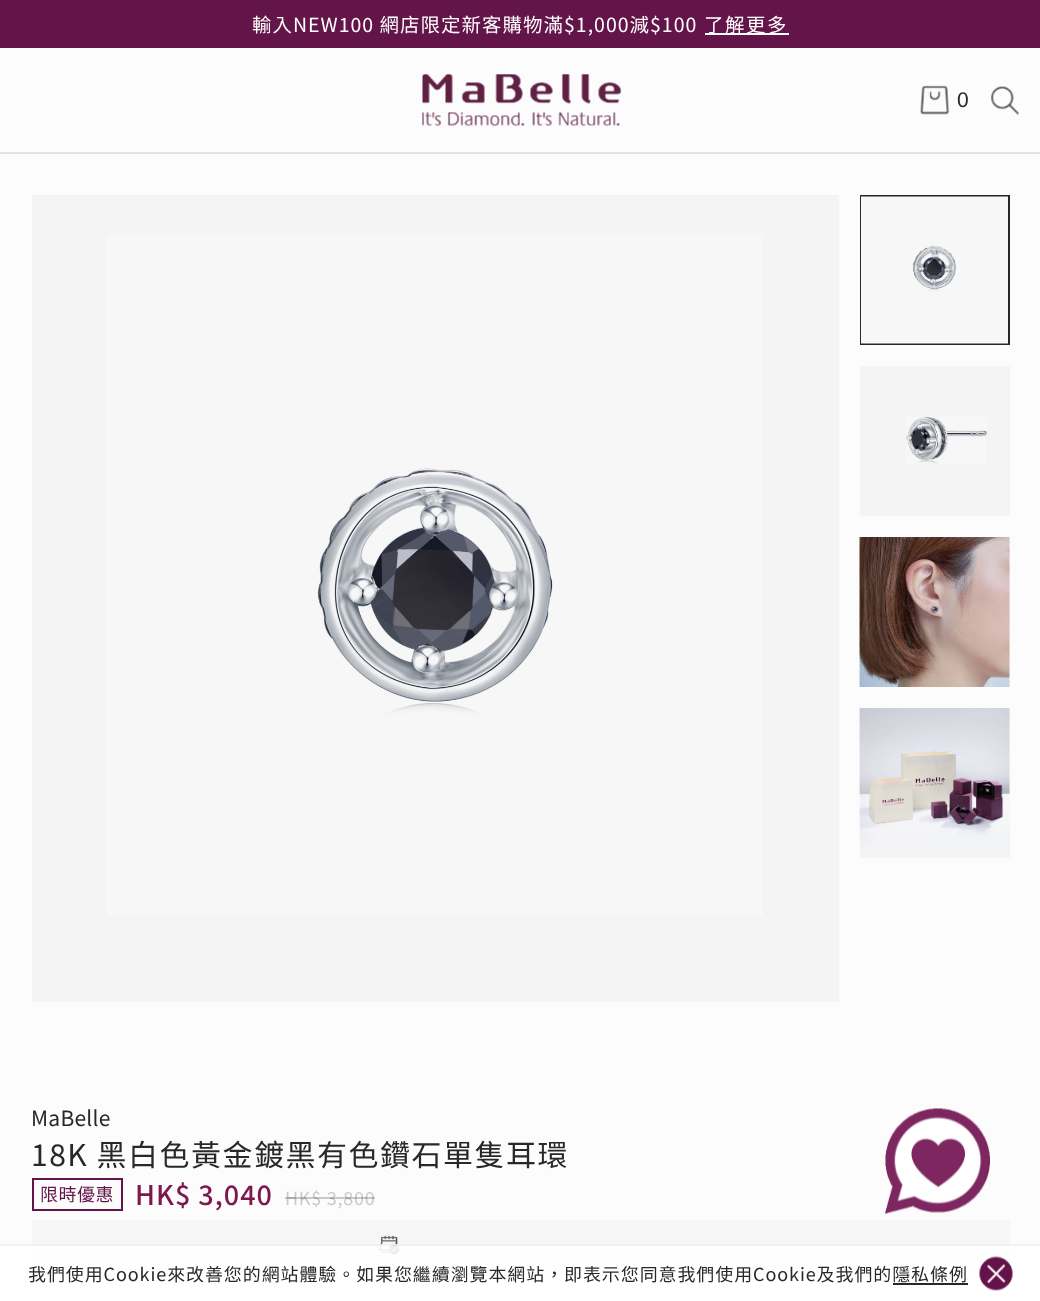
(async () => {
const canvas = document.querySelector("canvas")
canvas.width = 1040
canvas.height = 1301
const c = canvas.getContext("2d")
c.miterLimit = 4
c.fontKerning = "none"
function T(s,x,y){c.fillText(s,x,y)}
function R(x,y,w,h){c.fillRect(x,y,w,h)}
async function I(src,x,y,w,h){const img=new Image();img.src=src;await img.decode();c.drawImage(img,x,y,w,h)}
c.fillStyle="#fcfcfc"
R(0,0,1040,1301)
c.fillStyle="#f4f4f4"
R(860,708,150,150)
R(1009,537,1,150)
R(860,366,150,150)
R(32,195,807,807)
c.fillStyle="#631549"
R(0,0,1040,48)
c.letterSpacing="1px"
c.font="19.5px Noto Sans TC"
c.fillStyle="#fff"
T("輸入NEW100 網店限定新客購物滿$1,000減$100",252,32)
R(705,33,84,2)
c.letterSpacing="1.5px"
T("了解更多",704,32)
c.fillStyle="#e3e3e3"
R(0,152,1040,2)
await I("1.png",422,74,200,52)
await I("2.png",920,85,30,30)
c.letterSpacing="0px"
c.font="21px Liberation Sans"
c.fillStyle="#282828"
T("0",957,107)
await I("3.png",990,86,29,29)
await I("4.png",107,235,656,681)
c.strokeStyle="#272727"
c.lineWidth=2
c.strokeRect(861,196,148,148)
await I("5.png",861,196,147,148)
await I("6.png",906,417,81,47)
await I("7.png",859,537,151,150)
await I("8.png",859,708,151,140)
c.letterSpacing="0.25px"
c.font="21px Noto Sans TC"
T("MaBelle",31,1126)
c.letterSpacing="1.5px"
c.font="30px Noto Sans TC"
T("18K 黑白色黃金鍍黑有色鑽石單隻耳環",31,1166)
c.strokeStyle="#631549"
c.strokeRect(33,1179,89,31)
c.letterSpacing="0.5px"
c.font="18px Noto Sans TC"
c.fillStyle="#631549"
T("限時優惠",40,1201)
c.letterSpacing="1px"
c.font="500 27px Noto Sans TC"
c.fillStyle="#7d184d"
T("HK$ 3,040",135,1205)
c.letterSpacing="0.75px"
c.font="18px Noto Sans TC"
c.fillStyle="#cacaca"
T("HK$ 3,800",285,1205)
c.fillStyle="#00000033"
R(285,1197,90,2)
c.fillStyle="#f6f6f6"
R(32,1220,978,51)
await I("9.png",377,1235,23,20)
await I("10.png",885,1108,105,106)
c.fillStyle="#ffffffe6"
R(0,1244,1040,57)
c.fillStyle="#0000000d"
R(0,1244,1040,2)
c.letterSpacing="0.9px"
c.fillStyle="#282828"
T("我們使用Cookie來改善您的網站體驗。如果您繼續瀏覽本網站，即表示您同意我們使用Cookie及我們的隱私條例",28,1281)
R(893,1283,75,2)
await I("11.png",979,1256,34,35)
})()
